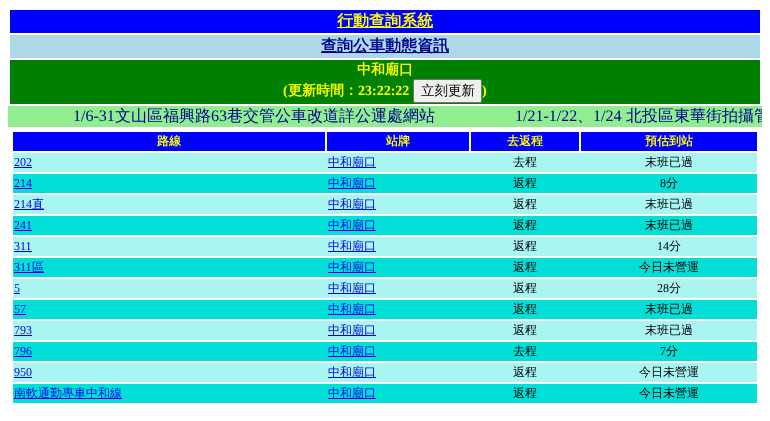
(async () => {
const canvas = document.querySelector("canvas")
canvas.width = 770
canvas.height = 421
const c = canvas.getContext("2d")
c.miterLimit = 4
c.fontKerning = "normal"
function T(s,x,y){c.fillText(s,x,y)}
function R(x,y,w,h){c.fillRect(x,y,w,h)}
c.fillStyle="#fff"
R(0,0,770,421)
c.fillStyle="#00f"
R(10,10,750,23)
c.fillStyle="#ff0"
R(337,27,96,1)
c.font="bold 16px WenQuanYi Zen Hei"
T("行動查詢系統",337,26)
c.fillStyle="#add8e6"
R(10,35,750,23)
c.fillStyle="#00008b"
R(321,52,128,1)
T("查詢公車動態資訊",321,51)
c.fillStyle="#008000"
R(10,60,750,44)
c.font="bold 14px WenQuanYi Zen Hei"
c.fillStyle="#ff0"
T("中和廟口",357,74)
c.font="bold 14px Liberation Serif"
T("(",283,95)
c.font="bold 14px WenQuanYi Zen Hei"
T("更新時間：",288,95)
c.font="bold 14px Liberation Serif"
T("23:22:22",358,95)
c.fillStyle="#efefef"
c.beginPath()
c.roundRect(413.5,79.5,68,23,1.5)
c.fill()
c.strokeStyle="#767676"
c.stroke()
c.font="500 13.5px WenQuanYi Zen Hei"
c.fillStyle="#000"
T("立刻更新",421,95)
c.font="bold 14px Liberation Serif"
c.fillStyle="#ff0"
T(")",482,95)
c.fillStyle="#90ee90"
R(8,106,754,21)
c.font="16px Liberation Serif"
c.fillStyle="#00008b"
T("1/6-31",73,121)
c.font="500 16px WenQuanYi Zen Hei"
T("文山區福興路",115,121)
c.font="16px Liberation Serif"
T("63",211,121)
c.font="500 16px WenQuanYi Zen Hei"
T("巷交管公車改道詳公運處網站",227,121)
c.font="16px Liberation Serif"
T("1/21-1/22",515,121)
c.font="500 16px WenQuanYi Zen Hei"
T("、",577,121)
c.font="16px Liberation Serif"
T("1/24",593,121)
c.save()
c.beginPath()
c.rect(8,106,754,21)
c.clip()
c.font="500 16px WenQuanYi Zen Hei"
T("北投區東華街拍攝管",626,121)
c.restore()
c.fillStyle="#00f"
R(13,132,312,19)
c.font="bold 12px WenQuanYi Zen Hei"
c.fillStyle="#ff0"
T("路線",157,145)
c.fillStyle="#00f"
R(327,132,142,19)
c.fillStyle="#ff0"
T("站牌",386,145)
c.fillStyle="#00f"
R(471,132,108,19)
c.fillStyle="#ff0"
T("去返程",507,145)
c.fillStyle="#00f"
R(581,132,176,19)
c.fillStyle="#ff0"
T("預估到站",645,145)
c.fillStyle="#a9f5f2"
R(13,153,744,19)
c.font="12px Liberation Serif"
c.fillStyle="#00e"
T("202",14,166)
R(14,167,18,1)
R(328,167,48,1)
c.font="500 12px WenQuanYi Zen Hei"
T("中和廟口",328,166)
c.fillStyle="#000"
T("去程",513,166)
T("末班已過",645,166)
c.fillStyle="#01dfd7"
R(13,174,744,19)
c.font="12px Liberation Serif"
c.fillStyle="#00e"
T("214",14,187)
R(14,188,18,1)
R(328,188,48,1)
c.font="500 12px WenQuanYi Zen Hei"
T("中和廟口",328,187)
c.fillStyle="#000"
T("返程",513,187)
c.font="12px Liberation Serif"
T("8",660,187)
c.font="500 12px WenQuanYi Zen Hei"
T("分",666,187)
c.fillStyle="#a9f5f2"
R(13,195,744,19)
c.font="12px Liberation Serif"
c.fillStyle="#00e"
T("214",14,208)
R(14,209,30,1)
c.font="500 12px WenQuanYi Zen Hei"
T("直",32,208)
R(328,209,48,1)
T("中和廟口",328,208)
c.fillStyle="#000"
T("返程",513,208)
T("末班已過",645,208)
c.fillStyle="#01dfd7"
R(13,216,744,19)
c.font="12px Liberation Serif"
c.fillStyle="#00e"
T("241",14,229)
R(14,230,18,1)
R(328,230,48,1)
c.font="500 12px WenQuanYi Zen Hei"
T("中和廟口",328,229)
c.fillStyle="#000"
T("返程",513,229)
T("末班已過",645,229)
c.fillStyle="#a9f5f2"
R(13,237,744,19)
c.font="12px Liberation Serif"
c.fillStyle="#00e"
T("311",14,250)
R(14,251,18,1)
R(328,251,48,1)
c.font="500 12px WenQuanYi Zen Hei"
T("中和廟口",328,250)
c.fillStyle="#000"
T("返程",513,250)
c.font="12px Liberation Serif"
T("14",657,250)
c.font="500 12px WenQuanYi Zen Hei"
T("分",669,250)
c.fillStyle="#01dfd7"
R(13,258,744,19)
c.font="12px Liberation Serif"
c.fillStyle="#00e"
T("311",14,271)
R(14,272,30,1)
c.font="500 12px WenQuanYi Zen Hei"
T("區",32,271)
R(328,272,48,1)
T("中和廟口",328,271)
c.fillStyle="#000"
T("返程",513,271)
T("今日未營運",639,271)
c.fillStyle="#a9f5f2"
R(13,279,744,19)
c.font="12px Liberation Serif"
c.fillStyle="#00e"
T("5",14,292)
R(14,293,6,1)
R(328,293,48,1)
c.font="500 12px WenQuanYi Zen Hei"
T("中和廟口",328,292)
c.fillStyle="#000"
T("返程",513,292)
c.font="12px Liberation Serif"
T("28",657,292)
c.font="500 12px WenQuanYi Zen Hei"
T("分",669,292)
c.fillStyle="#01dfd7"
R(13,300,744,19)
c.font="12px Liberation Serif"
c.fillStyle="#00e"
T("57",14,313)
R(14,314,12,1)
R(328,314,48,1)
c.font="500 12px WenQuanYi Zen Hei"
T("中和廟口",328,313)
c.fillStyle="#000"
T("返程",513,313)
T("末班已過",645,313)
c.fillStyle="#a9f5f2"
R(13,321,744,19)
c.font="12px Liberation Serif"
c.fillStyle="#00e"
T("793",14,334)
R(14,335,18,1)
R(328,335,48,1)
c.font="500 12px WenQuanYi Zen Hei"
T("中和廟口",328,334)
c.fillStyle="#000"
T("返程",513,334)
T("末班已過",645,334)
c.fillStyle="#01dfd7"
R(13,342,744,19)
c.font="12px Liberation Serif"
c.fillStyle="#00e"
T("796",14,355)
R(14,356,18,1)
R(328,356,48,1)
c.font="500 12px WenQuanYi Zen Hei"
T("中和廟口",328,355)
c.fillStyle="#000"
T("去程",513,355)
c.font="12px Liberation Serif"
T("7",660,355)
c.font="500 12px WenQuanYi Zen Hei"
T("分",666,355)
c.fillStyle="#a9f5f2"
R(13,363,744,19)
c.font="12px Liberation Serif"
c.fillStyle="#00e"
T("950",14,376)
R(14,377,18,1)
R(328,377,48,1)
c.font="500 12px WenQuanYi Zen Hei"
T("中和廟口",328,376)
c.fillStyle="#000"
T("返程",513,376)
T("今日未營運",639,376)
c.fillStyle="#01dfd7"
R(13,384,744,19)
c.fillStyle="#00e"
R(14,398,108,1)
T("南軟通勤專車中和線",14,397)
R(328,398,48,1)
T("中和廟口",328,397)
c.fillStyle="#000"
T("返程",513,397)
T("今日未營運",639,397)
})()
